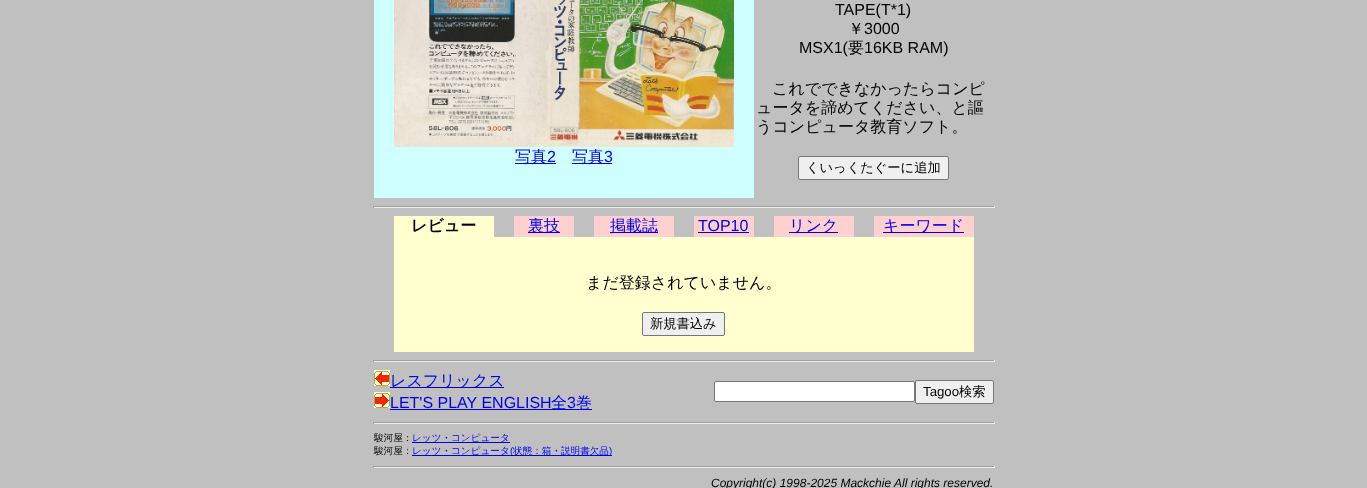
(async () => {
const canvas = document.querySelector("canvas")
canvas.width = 1367
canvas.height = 488
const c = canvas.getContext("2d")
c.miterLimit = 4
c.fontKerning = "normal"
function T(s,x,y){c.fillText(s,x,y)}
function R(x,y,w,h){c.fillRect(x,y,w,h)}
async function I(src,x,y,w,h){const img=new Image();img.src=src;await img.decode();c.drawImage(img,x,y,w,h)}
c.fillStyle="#c0c0c0"
R(0,0,1367,488)
c.fillStyle="#d0ffff"
R(374,0,380,198)
await I("1.png",394,0,340,147)
c.fillStyle="#00e"
R(515,163,41,1)
c.font="500 16px WenQuanYi Zen Hei"
T("写真",515,162)
c.font="16px Liberation Sans"
T("2",547,162)
R(572,163,40,1)
c.font="500 16px WenQuanYi Zen Hei"
T("写真",572,162)
c.font="16px Liberation Sans"
T("3",604,162)
c.fillStyle="#000"
T("TAPE(T*1)",835,15)
c.font="500 16px WenQuanYi Zen Hei"
T("￥",848,34)
c.font="16px Liberation Sans"
T("3000",864,34)
T("MSX1(",799,53)
c.font="500 16px WenQuanYi Zen Hei"
T("要",848,53)
c.font="16px Liberation Sans"
T("16KB RAM)",864,53)
c.font="500 16px WenQuanYi Zen Hei"
T("これでできなかったらコンピ",772,94)
T("ュータを諦めてください、と謳",756,113)
T("うコンピュータ教育ソフト。",756,132)
c.fillStyle="#efefef"
c.beginPath()
c.roundRect(798.5,156.5,150,23,1.5)
c.fill()
c.strokeStyle="#767676"
c.stroke()
c.font="500 13.25px WenQuanYi Zen Hei"
c.fillStyle="#000"
T("くいっくたぐーに追加",806,172)
c.fillStyle="#9f9f9f"
R(373,206,622,1)
c.fillStyle="#eee"
R(994,206,1,2)
R(373,207,622,1)
c.fillStyle="#9f9f9f"
R(373,206,1,2)
c.fillStyle="#ffffd0"
R(394,216,100,21)
c.font="bold 16px WenQuanYi Zen Hei"
c.fillStyle="#000"
T("レビュー",411,231)
c.fillStyle="#ffd0d0"
R(514,216,60,21)
c.fillStyle="#00e"
R(528,232,32,1)
c.font="500 16px WenQuanYi Zen Hei"
T("裏技",528,231)
c.fillStyle="#ffd0d0"
R(594,216,80,21)
c.fillStyle="#00e"
R(610,232,48,1)
T("掲載誌",610,231)
c.fillStyle="#ffd0d0"
R(694,216,60,21)
c.font="16px Liberation Sans"
c.fillStyle="#00e"
T("TOP10",698,231)
R(698,232,51,1)
c.fillStyle="#ffd0d0"
R(774,216,80,21)
c.fillStyle="#00e"
R(789,232,49,1)
c.font="500 16px WenQuanYi Zen Hei"
T("リンク",789,231)
c.fillStyle="#ffd0d0"
R(874,216,100,21)
c.fillStyle="#00e"
R(883,232,81,1)
T("キーワード",883,231)
c.fillStyle="#ffffd0"
R(394,237,580,115)
c.fillStyle="#000"
T("まだ登録されていません。",586,288)
c.fillStyle="#efefef"
c.beginPath()
c.roundRect(642.5,312.5,82,23,1.5)
c.fill()
c.stroke()
c.font="500 13.25px WenQuanYi Zen Hei"
c.fillStyle="#000"
T("新規書込み",650,328)
c.fillStyle="#9f9f9f"
R(373,360,622,1)
c.fillStyle="#eee"
R(994,360,1,2)
R(373,361,622,1)
c.fillStyle="#9f9f9f"
R(373,360,1,2)
await I("2.png",374,370,16,16)
c.fillStyle="#00e"
R(390,387,114,1)
c.font="500 16px WenQuanYi Zen Hei"
T("レスフリックス",390,386)
await I("3.png",374,392,16,16)
c.font="16px Liberation Sans"
T("LET'S PLAY ENGLISH",390,408)
R(390,409,202,1)
c.font="500 16px WenQuanYi Zen Hei"
T("全",551,408)
c.font="16px Liberation Sans"
T("3",567,408)
c.font="500 16px WenQuanYi Zen Hei"
T("巻",576,408)
c.fillStyle="#fff"
c.beginPath()
c.roundRect(714.5,381.5,200,20,1.5)
c.fill()
c.stroke()
c.fillStyle="#efefef"
c.beginPath()
c.roundRect(915.5,380.5,78,23,1.5)
c.fill()
c.stroke()
c.font="13.25px Liberation Sans"
c.fillStyle="#000"
T("Tagoo",923,396)
c.font="500 13.25px WenQuanYi Zen Hei"
T("検索",959,396)
c.fillStyle="#9f9f9f"
R(373,422,622,1)
c.fillStyle="#eee"
R(994,422,1,2)
R(373,423,622,1)
c.fillStyle="#9f9f9f"
R(373,422,1,2)
c.font="500 9.6px WenQuanYi Zen Hei"
c.fillStyle="#000"
T("駿河屋：",374,441)
c.fillStyle="#00e"
R(412,442,98,1)
T("レッツ・コンピュータ",412,441)
c.fillStyle="#000"
T("駿河屋：",374,454)
c.fillStyle="#00e"
R(412,455,200,1)
T("レッツ・コンピュータ",412,454)
c.font="9.6px Liberation Sans"
T("(",510,454)
c.font="500 9.6px WenQuanYi Zen Hei"
T("状態：箱・説明書欠品",513,454)
c.font="9.6px Liberation Sans"
T(")",609,454)
c.fillStyle="#9f9f9f"
R(373,466,622,1)
c.fillStyle="#eee"
R(994,466,1,2)
R(373,467,622,1)
c.fillStyle="#9f9f9f"
R(373,466,1,2)
c.font="italic 12px Liberation Sans"
c.fillStyle="#000"
T("Copyright(c) 1998-2025 Mackchie All rights reserved.",711,487)
})()
